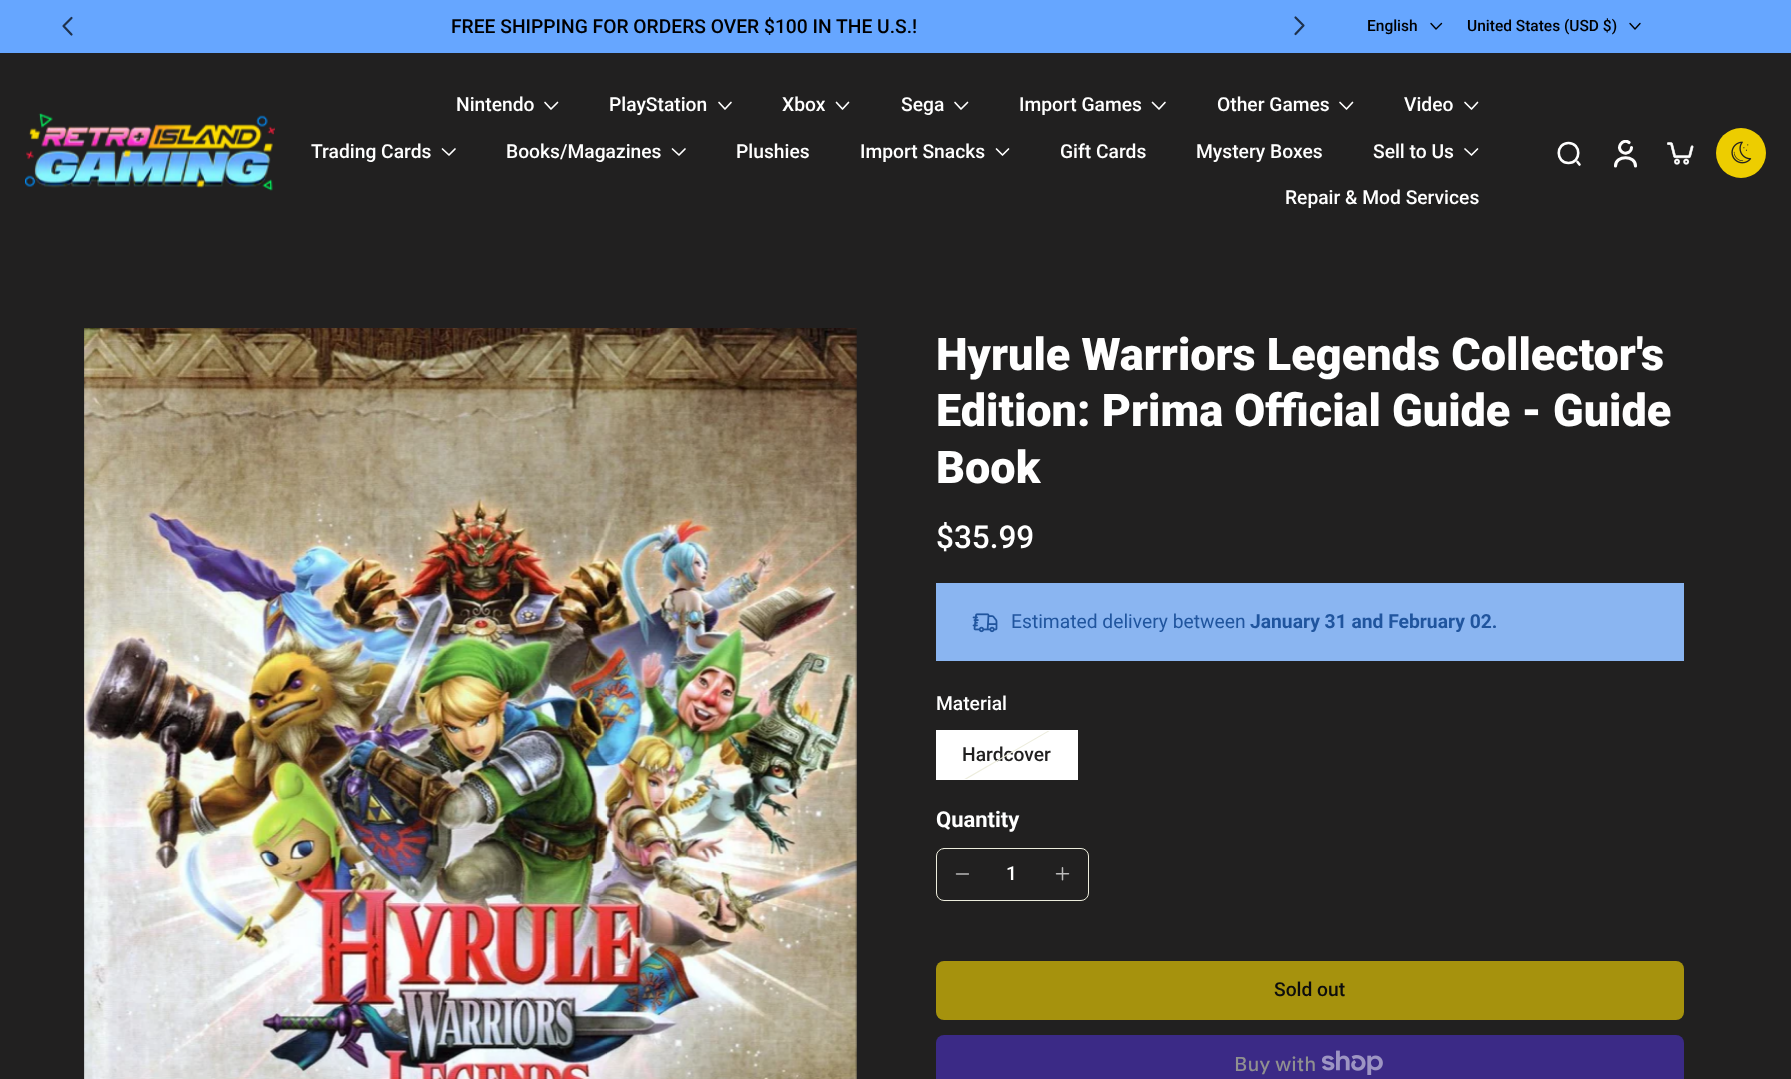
(async () => {
const canvas = document.querySelector("canvas")
canvas.width = 1791
canvas.height = 1079
const c = canvas.getContext("2d")
c.miterLimit = 4
c.fontKerning = "normal"
function T(s,x,y){c.fillText(s,x,y)}
function R(x,y,w,h){c.fillRect(x,y,w,h)}
function Q(x,y,w,h,r){c.beginPath();c.roundRect(x,y,w,h,r);c.fill()}
async function I(src,x,y,w,h){const img=new Image();img.src=src;await img.decode();c.drawImage(img,x,y,w,h)}
let path
c.fillStyle="#212020"
R(0,0,1791,1079)
c.fillStyle="#66a6ff"
R(0,0,1791,53)
path = new Path2D("M71.5 18l-8 8l8 8.5")
c.strokeStyle="#1f324d"
c.lineWidth=2.2
c.lineCap="round"
c.lineJoin="round"
c.stroke(path)
path = new Path2D("M1295.5 34l8-8.5l-8-8")
c.stroke(path)
c.font="500 19.25px Roboto"
c.fillStyle="#000"
T("FREE SHIPPING FOR ORDERS OVER $100 IN THE U.S.!",451,33)
c.font="500 15.5px Roboto"
T("English",1367,31)
path = new Path2D("M1431 23.5l5 5.5l5.5-5.5")
c.strokeStyle="#000"
c.lineWidth=1.4
c.stroke(path)
T("United States (USD $)",1467,31)
path = new Path2D("M1630 23.5l5 5.5l5-5.5")
c.stroke(path)
await I("1.png",25,113,250,78)
c.font="500 19.25px Roboto"
c.fillStyle="#fff"
T("Nintendo",456,111)
path = new Path2D("M545 102.5l6 6.5l6.5-6.5")
c.strokeStyle="#fff"
c.lineWidth=1.7
c.stroke(path)
T("PlayStation",609,111)
path = new Path2D("M719 102.5l6 6.5l6-6.5")
c.stroke(path)
T("Xbox",782,111)
path = new Path2D("M836.5 102.5l6 6.5l6-6.5")
c.stroke(path)
T("Sega",901,111)
path = new Path2D("M955 102.5l6 6.5l6.5-6.5")
c.stroke(path)
T("Import Games",1019,111)
path = new Path2D("M1152.5 102.5l6.5 6.5l6-6.5")
c.stroke(path)
T("Other Games",1217,111)
path = new Path2D("M1340 102.5l6.5 6.5l6-6.5")
c.stroke(path)
T("Video",1404,111)
path = new Path2D("M1465 102.5l6.5 6.5l6-6.5")
c.stroke(path)
T("Trading Cards",311,158)
path = new Path2D("M442.5 149l6.5 6l6-6")
c.stroke(path)
T("Books/Magazines",506,158)
path = new Path2D("M672.5 149l6.5 6l6-6")
c.stroke(path)
T("Plushies",736,158)
T("Import Snacks",860,158)
path = new Path2D("M996.5 149l6 6l6-6")
c.stroke(path)
T("Gift Cards",1060,158)
T("Mystery Boxes",1196,158)
T("Sell to Us",1373,158)
path = new Path2D("M1465 149l6.5 6l6-6")
c.stroke(path)
T("Repair & Mod Services",1285,204)
path = new Path2D("M1568.5 163c13 0 13-20 0-20c-13 0-13 20 0 20zm11 1.5l-2-2.5")
c.lineWidth=2.6
c.stroke(path)
c.save()
c.beginPath()
c.rect(1611,140,28,28)
c.clip()
path = new Path2D("M1629 142.5c-6-4.5-13.5 5-7 9.5c1.5 1 3 1.5 4.5 1c3-.5 5-3 5-5.5")
c.lineWidth=3.1
c.stroke(path)
c.restore()
path = new Path2D("M1635.5 166c0-11-20-11-20 0")
c.lineWidth=3.1
c.stroke(path)
await I("2.png",1667,142,27,23)
c.fillStyle="#edcd00"
c.beginPath()
c.arc(1741,153,25,0,7)
c.fill()
await I("3.png",1731,141,21,23)
await I("4.png",84,328,773,751)
c.font="900 45px Roboto"
c.fillStyle="#fff"
T("Hyrule Warriors Legends Collector's",936,370)
T("Edition: Prima Official Guide - Guide",936,426)
T("Book",936,483)
c.font="500 31.5px Roboto"
T("$35.99",936,548)
c.fillStyle="#8ab5f1"
R(936,583,748,78)
await I("5.png",972,613,26,20)
c.font="19.25px Roboto"
c.fillStyle="#20559e"
T("Estimated delivery between",1011,628)
c.font="bold 19.25px Roboto"
T("January 31 and February 02.",1250,628)
c.font="500 19.25px Roboto"
c.fillStyle="#fff"
T("Material",936,710)
R(936,730,142,50)
c.fillStyle="#212020"
T("Hardcover",962,761)
c.save()
c.beginPath()
c.rect(938,731,138,48)
c.clip()
c.fillStyle="#ededdd"
path = new Path2D("M940 793l132-76v1l-131 76z")
c.fill(path)
c.restore()
c.font="bold 22px Roboto"
c.fillStyle="#fff"
T("Quantity",936,827)
c.beginPath()
c.roundRect(936.5,848.5,152,52,7.5)
c.strokeStyle="#ededdd"
c.lineWidth=1
c.lineJoin="miter"
c.stroke()
await I("6.png",955,873,14,2)
c.font="500 19.25px Roboto"
T("1",1006,880)
await I("7.png",1055,867,15,14)
c.fillStyle="#a6920d"
Q(936,961,748,59,8)
c.fillStyle="#0d0d0d"
T("Sold out",1274,996)
c.fillStyle="#3b2a86"
Q(936,1035,748,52,8)
c.font="500 20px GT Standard"
c.fillStyle="#909090"
T("Buy with",1234,1071)
await I("8.png",1322,1050,61,25)
})()
